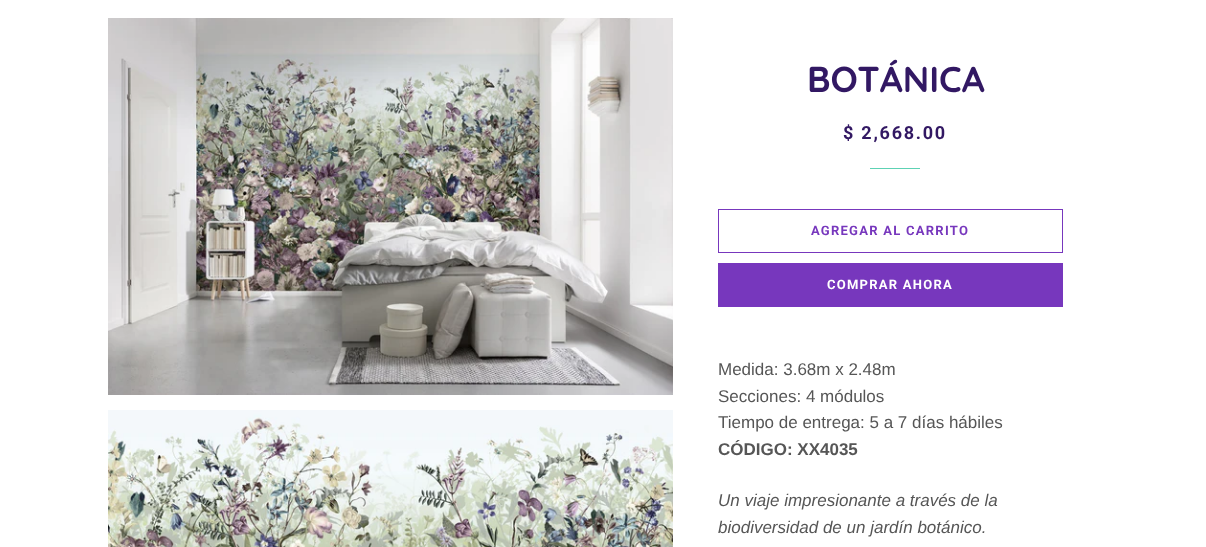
(async () => {
const canvas = document.querySelector("canvas")
canvas.width = 1206
canvas.height = 547
const c = canvas.getContext("2d")
c.miterLimit = 4
c.fontKerning = "normal"
function T(s,x,y){c.fillText(s,x,y)}
function R(x,y,w,h){c.fillRect(x,y,w,h)}
async function I(src,x,y,w,h){const img=new Image();img.src=src;await img.decode();c.drawImage(img,x,y,w,h)}
c.fillStyle="#fff"
R(0,0,1206,547)
await I("1.png",108,18,565,377)
await I("2.png",108,410,565,137)
c.font="bold 36px Quicksand"
c.fillStyle="#321863"
T("BOTÁNICA",807,92)
c.letterSpacing="1.75px"
c.font="bold 18px Roboto"
T("$ 2,668.00",843,139)
c.fillStyle="#5dd2b4"
R(870,168,50,1)
c.strokeStyle="#7737bd"
c.strokeRect(718.5,209.5,344,43)
c.letterSpacing="1.25px"
c.font="bold 13px Roboto"
c.fillStyle="#7737bd"
T("AGREGAR AL CARRITO",811,235)
R(718,263,345,44)
c.fillStyle="#fff"
T("COMPRAR AHORA",827,289)
c.letterSpacing="0px"
c.font="17px Liberation Sans"
c.fillStyle="#565656"
T("Medida: 3.68m x 2.48m",718,375)
T("Secciones: 4 módulos",718,402)
T("Tiempo de entrega: 5 a 7 días hábiles",718,428)
c.font="bold 17px Liberation Sans"
T("CÓDIGO: XX4035",718,455)
c.font="italic 17px Liberation Sans"
T("Un viaje impresionante a través de la",718,506)
T("biodiversidad de un jardín botánico.",718,533)
})()
